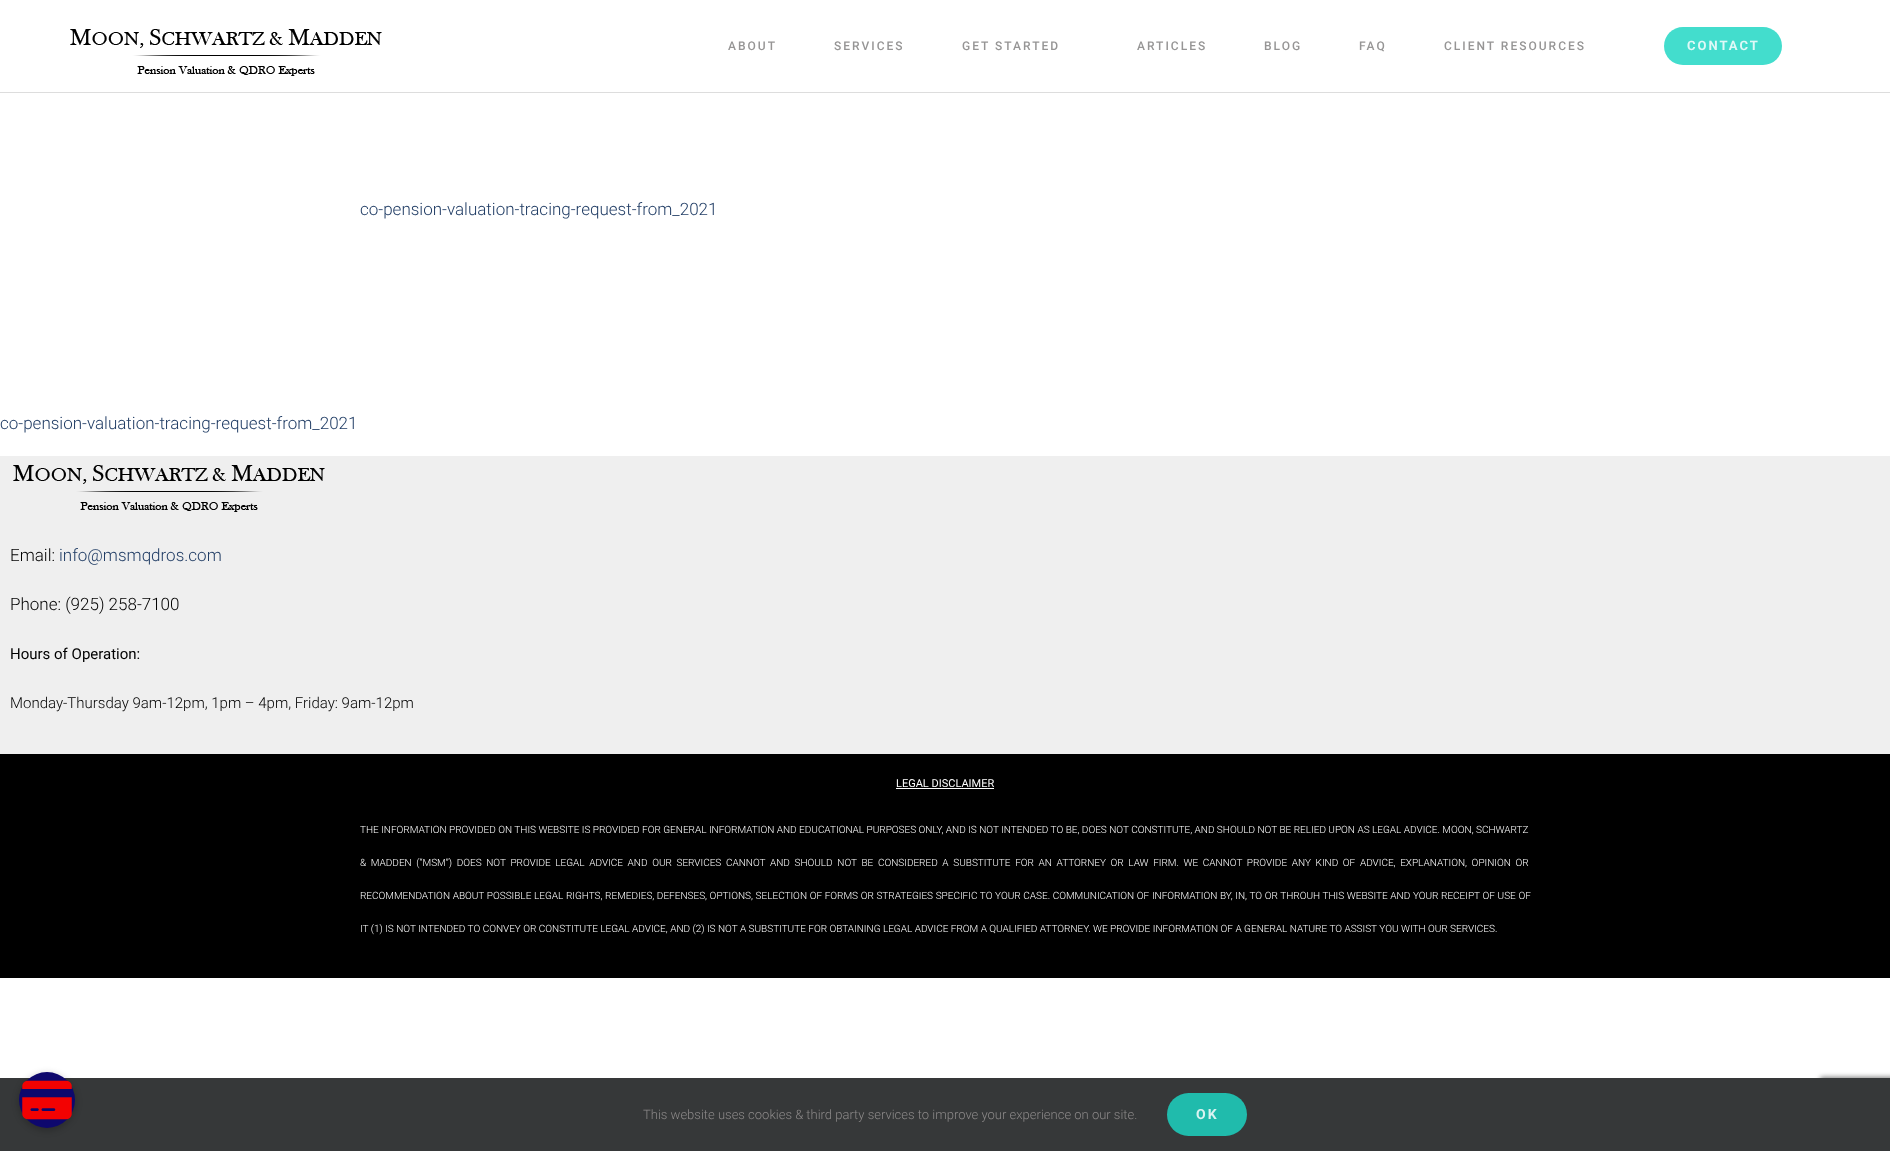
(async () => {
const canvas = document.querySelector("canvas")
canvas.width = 1890
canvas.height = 1151
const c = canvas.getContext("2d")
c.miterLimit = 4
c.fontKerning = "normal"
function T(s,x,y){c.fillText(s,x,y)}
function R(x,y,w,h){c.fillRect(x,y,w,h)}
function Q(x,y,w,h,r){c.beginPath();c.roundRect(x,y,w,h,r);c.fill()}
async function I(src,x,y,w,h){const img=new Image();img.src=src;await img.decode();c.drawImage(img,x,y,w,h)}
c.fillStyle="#fff"
R(0,0,1890,1151)
c.fillStyle="#ddd"
R(0,92,1890,1)
await I("1.png",70,29,312,47)
c.letterSpacing="2px"
c.font="500 12px Roboto"
c.fillStyle="#969595"
T("ABOUT",728,50)
T("SERVICES",834,50)
T("GET STARTED",962,50)
T("ARTICLES",1137,50)
T("BLOG",1264,50)
T("FAQ",1359,50)
T("CLIENT RESOURCES",1444,50)
c.fillStyle="#43ddcd"
Q(1664,27,118,38,19)
c.font="bold 13px Roboto"
c.fillStyle="#dff9f7"
T("CONTACT",1687,50)
c.letterSpacing="0px"
c.font="300 17px Roboto"
c.fillStyle="#213d65"
T("co-pension-valuation-tracing-request-from_2021",360,215)
T("co-pension-valuation-tracing-request-from_2021",0,429)
c.fillStyle="#efefef"
R(0,456,1890,298)
await I("2.png",13,465,312,47)
c.fillStyle="#000"
T("Email:",10,561)
c.fillStyle="#213d65"
T("info@msmqdros.com",59,561)
c.fillStyle="#000"
T("Phone: (925) 258-7100",10,610)
c.font="15px Roboto"
T("Hours of Operation:",10,659)
c.font="300 15px Roboto"
T("Monday-Thursday 9am-12pm, 1pm – 4pm, Friday: 9am-12pm",10,708)
R(0,754,1890,224)
c.font="11px Roboto"
c.fillStyle="#fff"
T("LEGAL DISCLAIMER",896,787)
R(896,788,98,1)
c.font="300 10px Roboto"
T("THE INFORMATION PROVIDED ON THIS WEBSITE IS PROVIDED FOR GENERAL INFORMATION AND EDUCATIONAL PURPOSES ONLY, AND IS NOT INTENDED TO BE, DOES NOT CONSTITUTE, AND SHOULD NOT BE RELIED UPON AS LEGAL ADVICE. MOON, SCHWARTZ",360,833)
c.wordSpacing="2.2px"
T("& MADDEN (“MSM”) DOES NOT PROVIDE LEGAL ADVICE AND OUR SERVICES CANNOT AND SHOULD NOT BE CONSIDERED A SUBSTITUTE FOR AN ATTORNEY OR LAW FIRM. WE CANNOT PROVIDE ANY KIND OF ADVICE, EXPLANATION, OPINION OR",360,866)
c.wordSpacing="0.2px"
T("RECOMMENDATION ABOUT POSSIBLE LEGAL RIGHTS, REMEDIES, DEFENSES, OPTIONS, SELECTION OF FORMS OR STRATEGIES SPECIFIC TO YOUR CASE. COMMUNICATION OF INFORMATION BY, IN, TO OR THROUH THIS WEBSITE AND YOUR RECEIPT OF USE OF",360,899)
c.wordSpacing="0px"
T("IT (1) IS NOT INTENDED TO CONVEY OR CONSTITUTE LEGAL ADVICE, AND (2) IS NOT A SUBSTITUTE FOR OBTAINING LEGAL ADVICE FROM A QUALIFIED ATTORNEY. WE PROVIDE INFORMATION OF A GENERAL NATURE TO ASSIST YOU WITH OUR SERVICES.",360,932)
c.fillStyle="#808080"
c.filter="blur(2.5px)"
c.beginPath()
c.roundRect(1820,1077,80,60,2)
c.fill()
c.filter="none"
c.fillStyle="#363839"
R(0,1078,1890,73)
c.fillStyle="#00000033"
c.filter="blur(3px)"
c.beginPath()
c.roundRect(18,1073,58,58,29)
c.fill()
c.filter="none"
c.fillStyle="#0e086d"
c.beginPath()
c.arc(47,1100,28,0,7)
c.fill()
await I("3.png",22,1080,50,40)
c.font="300 13px Roboto"
c.fillStyle="#8c8989"
T("This website uses cookies & third party services to improve your experience on our site.",643,1119)
c.fillStyle="#20bbac"
Q(1167,1093,80,43,21.5)
c.letterSpacing="2px"
c.font="bold 14px Roboto"
c.fillStyle="#d9f3f1"
T("OK",1196,1119)
})()
